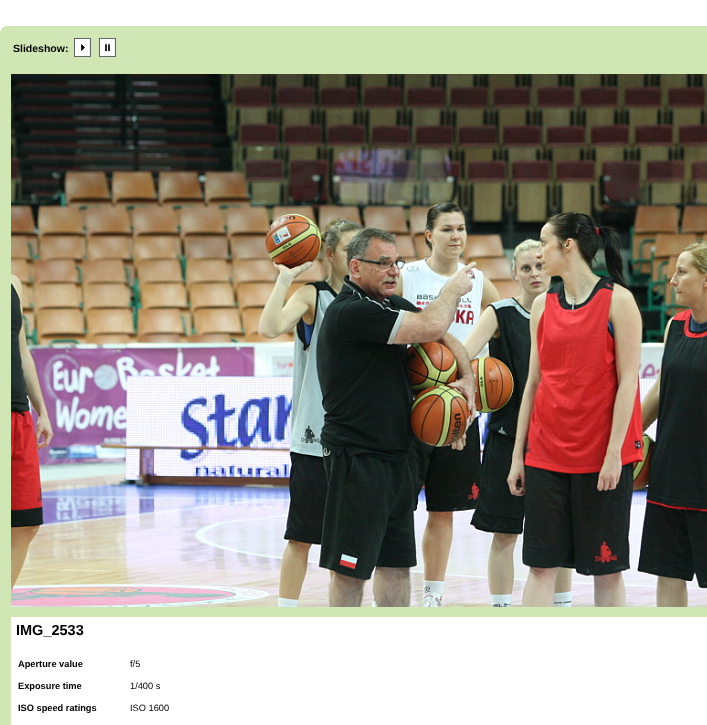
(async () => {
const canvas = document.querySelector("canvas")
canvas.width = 707
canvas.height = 725
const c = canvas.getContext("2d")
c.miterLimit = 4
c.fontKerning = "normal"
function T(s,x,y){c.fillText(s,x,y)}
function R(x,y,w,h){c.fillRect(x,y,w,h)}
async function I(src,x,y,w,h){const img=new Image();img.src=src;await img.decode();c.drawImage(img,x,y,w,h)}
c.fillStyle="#fff"
R(0,0,707,725)
c.fillStyle="#d0e6b5"
R(5,26,702,1)
R(3,27,704,1)
R(2,28,705,1)
R(1,29,706,2)
R(0,31,707,694)
c.font="bold 10.5px Liberation Sans"
c.fillStyle="#000"
T("Slideshow:",13,52)
await I("1.png",74,38,17,19)
await I("2.png",99,38,17,19)
await I("3.png",11,74,696,533)
c.fillStyle="#fff"
R(11,617,696,108)
c.font="bold 14.5px Liberation Sans"
c.fillStyle="#000"
T("IMG_2533",16,635)
c.font="bold 9.25px Liberation Sans"
T("Aperture value",18,667)
c.font="9.25px Liberation Sans"
T("f/5",130,667)
c.font="bold 9.25px Liberation Sans"
T("Exposure time",18,689)
c.font="9.25px Liberation Sans"
T("1/400 s",130,689)
c.font="bold 9.25px Liberation Sans"
T("ISO speed ratings",18,711)
c.font="9.25px Liberation Sans"
T("ISO 1600",130,711)
})()
